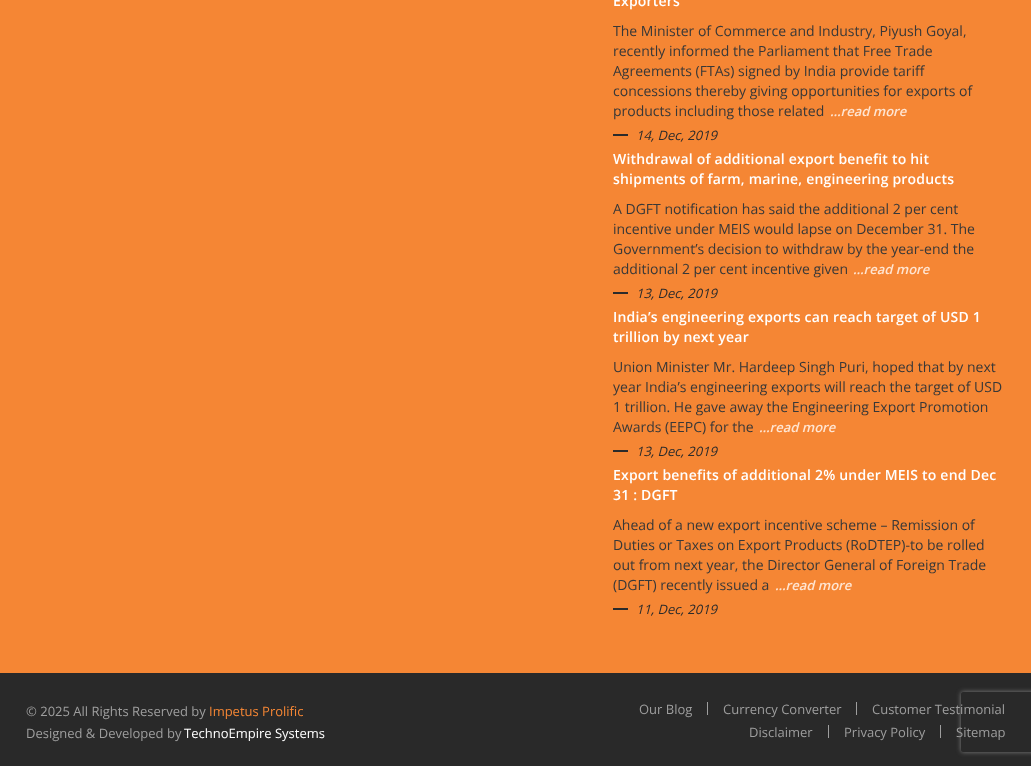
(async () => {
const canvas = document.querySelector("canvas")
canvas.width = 1031
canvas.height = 766
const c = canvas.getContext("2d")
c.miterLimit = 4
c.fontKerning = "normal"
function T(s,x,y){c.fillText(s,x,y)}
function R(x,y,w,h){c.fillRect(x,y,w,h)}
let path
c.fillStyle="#f58634"
R(0,0,1031,766)
c.letterSpacing="0.2px"
c.font="600 14px Open Sans"
c.fillStyle="#fff"
T("Exporters",613,6)
c.letterSpacing="0px"
c.font="14px Open Sans"
c.fillStyle="#383838"
T("The Minister of Commerce and Industry, Piyush Goyal,",613,36)
T("recently informed the Parliament that Free Trade",613,56)
T("Agreements (FTAs) signed by India provide tariff",613,76)
T("concessions thereby giving opportunities for exports of",613,96)
T("products including those related",613,116)
c.font="italic 600 13px Open Sans"
c.fillStyle="#ffe5d2"
T("…read more",830,116)
c.fillStyle="#2b2b2b"
R(613,134,15,2)
c.font="italic 13px Open Sans"
T("14, Dec, 2019",636,140)
c.letterSpacing="0.2px"
c.font="600 14px Open Sans"
c.fillStyle="#fff"
T("Withdrawal of additional export benefit to hit",613,164)
T("shipments of farm, marine, engineering products",613,184)
c.letterSpacing="0px"
c.font="14px Open Sans"
c.fillStyle="#383838"
T("A DGFT notification has said the additional 2 per cent",613,214)
T("incentive under MEIS would lapse on December 31. The",613,234)
T("Government’s decision to withdraw by the year-end the",613,254)
T("additional 2 per cent incentive given",613,274)
c.font="italic 600 13px Open Sans"
c.fillStyle="#ffe5d2"
T("…read more",853,274)
c.fillStyle="#2b2b2b"
R(613,292,15,2)
c.font="italic 13px Open Sans"
T("13, Dec, 2019",636,298)
c.letterSpacing="0.2px"
c.font="600 14px Open Sans"
c.fillStyle="#fff"
T("India’s engineering exports can reach target of USD 1",613,322)
T("trillion by next year",613,342)
c.letterSpacing="0px"
c.font="14px Open Sans"
c.fillStyle="#383838"
T("Union Minister Mr. Hardeep Singh Puri, hoped that by next",613,372)
T("year India’s engineering exports will reach the target of USD",613,392)
T("1 trillion. He gave away the Engineering Export Promotion",613,412)
T("Awards (EEPC) for the",613,432)
c.font="italic 600 13px Open Sans"
c.fillStyle="#ffe5d2"
T("…read more",759,432)
c.fillStyle="#2b2b2b"
R(613,450,15,2)
c.font="italic 13px Open Sans"
T("13, Dec, 2019",636,456)
c.letterSpacing="0.2px"
c.font="600 14px Open Sans"
c.fillStyle="#fff"
T("Export benefits of additional 2% under MEIS to end Dec",613,480)
T("31 : DGFT",613,500)
c.letterSpacing="0px"
c.font="14px Open Sans"
c.fillStyle="#383838"
T("Ahead of a new export incentive scheme – Remission of",613,530)
T("Duties or Taxes on Export Products (RoDTEP)-to be rolled",613,550)
T("out from next year, the Director General of Foreign Trade",613,570)
T("(DGFT) recently issued a",613,590)
c.font="italic 600 13px Open Sans"
c.fillStyle="#ffe5d2"
T("…read more",775,590)
c.fillStyle="#2b2b2b"
R(613,608,15,2)
c.font="italic 13px Open Sans"
T("11, Dec, 2019",636,614)
c.fillStyle="#292929"
R(0,673,1031,93)
c.save()
path = new Path2D("M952 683h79v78h-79zm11 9h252c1 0 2 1 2 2v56c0 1-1 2-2 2h-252c-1 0-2-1-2-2v-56c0-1 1-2 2-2z")
c.clip(path,"evenodd")
c.fillStyle="#808080"
c.filter="blur(2.5px)"
c.beginPath()
c.roundRect(961,692,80,60,2)
c.fill()
c.filter="none"
c.restore()
c.font="13px Open Sans"
c.fillStyle="#9e9e9e"
T("© 2025 All Rights Reserved by",26,716)
c.fillStyle="#f58634"
T("Impetus Prolific",209,716)
c.fillStyle="#9e9e9e"
T("Designed & Developed by",26,738)
c.fillStyle="#fff"
T("TechnoEmpire Systems",184,738)
c.fillStyle="#9e9e9e"
R(707,702,1,13)
T("Our Blog",639,714)
R(856,702,1,13)
T("Currency Converter",723,714)
T("Customer Testimonial",872,714)
R(828,725,1,13)
T("Disclaimer",749,737)
R(940,725,1,13)
T("Privacy Policy",844,737)
T("Sitemap",956,737)
})()
